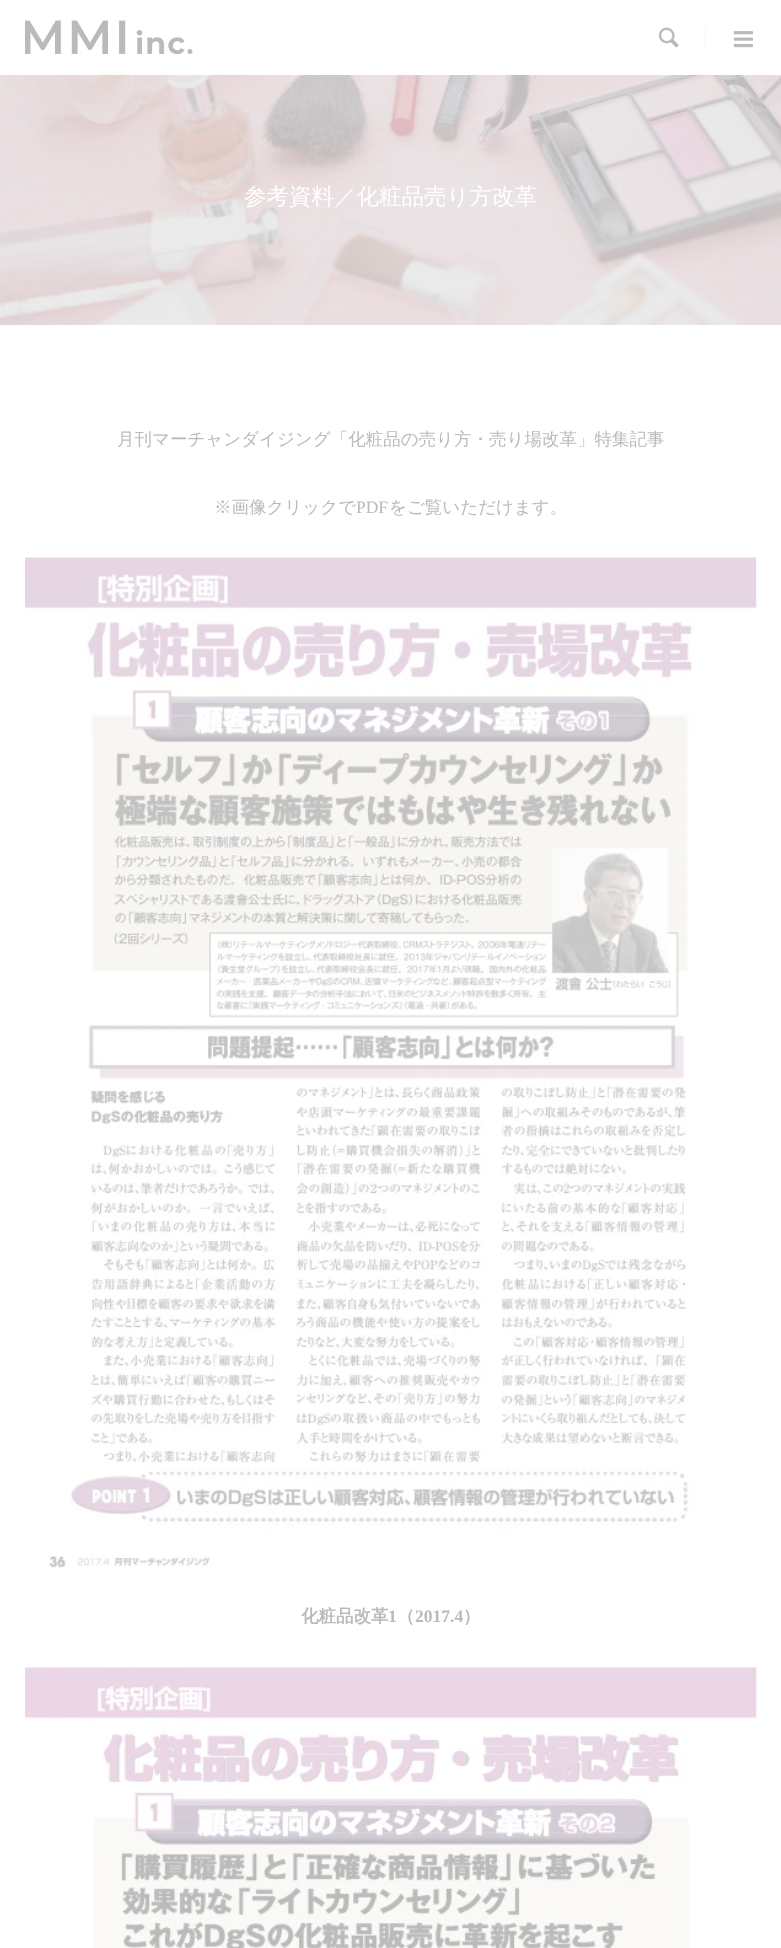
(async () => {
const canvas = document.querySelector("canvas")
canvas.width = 781
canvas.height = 1948
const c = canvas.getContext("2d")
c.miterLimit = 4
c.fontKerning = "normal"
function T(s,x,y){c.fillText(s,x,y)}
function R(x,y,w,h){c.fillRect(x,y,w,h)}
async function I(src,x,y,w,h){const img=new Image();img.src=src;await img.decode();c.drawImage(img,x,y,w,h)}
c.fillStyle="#fff"
R(0,0,781,1948)
await I("1.png",25,20,168,35)
await I("2.png",658,27,21,21)
c.fillStyle="#f6f6f6"
R(705,25,1,25)
await I("3.png",733,31,21,17)
await I("4.png",0,75,781,250)
c.font="500 22.5px WenQuanYi Zen Hei"
c.fillStyle="#fff"
T("参考資料／化粧品売り方改革",244,204)
c.font="500 17.5px WenQuanYi Zen Hei"
c.fillStyle="#bababa"
T("月刊マーチャンダイジング「化粧品の売り方・売り場改革」特集記事",117,445)
T("※画像クリックで",214,513)
c.font="17.5px Liberation Serif"
T("PDF",356,513)
c.font="500 17.5px WenQuanYi Zen Hei"
T("をご覧いただけます。",389,513)
await I("5.png",25,557,732,1014)
c.font="bold 17.5px WenQuanYi Zen Hei"
T("化粧品改革",301,1622)
c.font="bold 17.5px Liberation Serif"
T("1",388,1622)
c.font="bold 17.5px WenQuanYi Zen Hei"
T("（",397,1622)
c.font="bold 17.5px Liberation Serif"
T("2017.4",415,1622)
c.font="bold 17.5px WenQuanYi Zen Hei"
T("）",463,1622)
await I("6.png",25,1667,732,281)
})()
